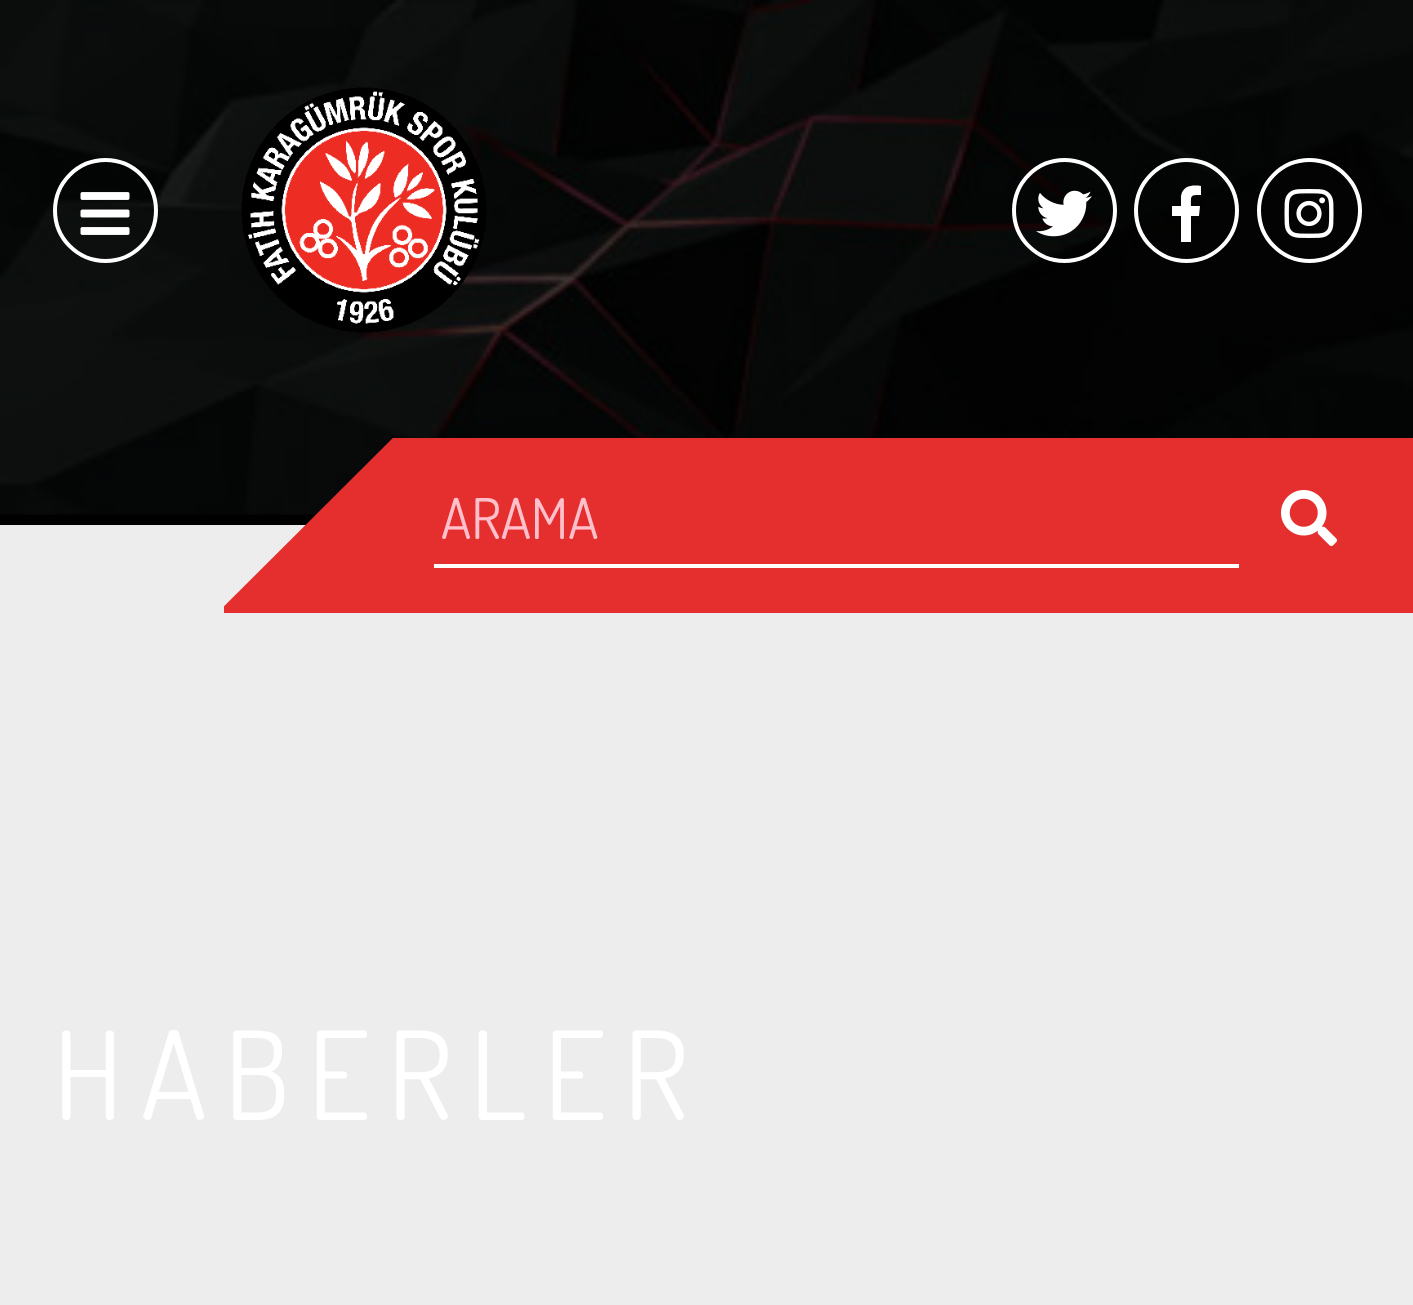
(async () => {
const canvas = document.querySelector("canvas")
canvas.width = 1413
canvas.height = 1305
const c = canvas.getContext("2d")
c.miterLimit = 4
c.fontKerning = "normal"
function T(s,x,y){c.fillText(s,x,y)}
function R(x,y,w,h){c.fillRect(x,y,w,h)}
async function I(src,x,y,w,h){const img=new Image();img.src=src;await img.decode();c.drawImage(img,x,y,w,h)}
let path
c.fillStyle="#ededed"
R(0,0,1413,1305)
c.fillStyle="#000"
R(0,514,317,11)
await I("1.png",0,0,1413,515)
c.beginPath()
c.arc(105.5,210.5,50.5,0,7)
c.strokeStyle="#fff"
c.lineWidth=4
c.stroke()
await I("2.png",80,192,50,43)
await I("3.png",241,87,246,246)
c.beginPath()
c.arc(1064.5,210.5,50.5,0,7)
c.stroke()
await I("4.png",1036,190,56,47)
c.beginPath()
c.arc(1186.5,210.5,50.5,0,7)
c.stroke()
c.fillStyle="#fff"
path = new Path2D("M1181 242v-26h-9v-10h9v-10c2-11 12-11 20-10v9c-11 0-10 0-10 11h9l-1 10h-8v26z")
c.fill(path)
c.beginPath()
c.arc(1309.5,210.5,50.5,0,7)
c.stroke()
await I("5.png",1284,189,50,49)
c.fillStyle="#e52f2f"
R(483,438,930,175)
c.save()
c.beginPath()
c.rect(224,438,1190,175)
c.clip()
path = new Path2D("M438 393l272 272l-273 272l-272-272z")
c.fill(path)
c.restore()
c.fillStyle="#fff"
R(434,564,805,4)
c.font="56px Dosis"
c.fillStyle="#ffc0cb"
T("ARAMA",441,539)
await I("6.png",1281,490,56,56)
c.letterSpacing="17.5px"
c.font="122.5px Dosis"
c.fillStyle="#fff"
T("HABERLER",53,1120)
})()
